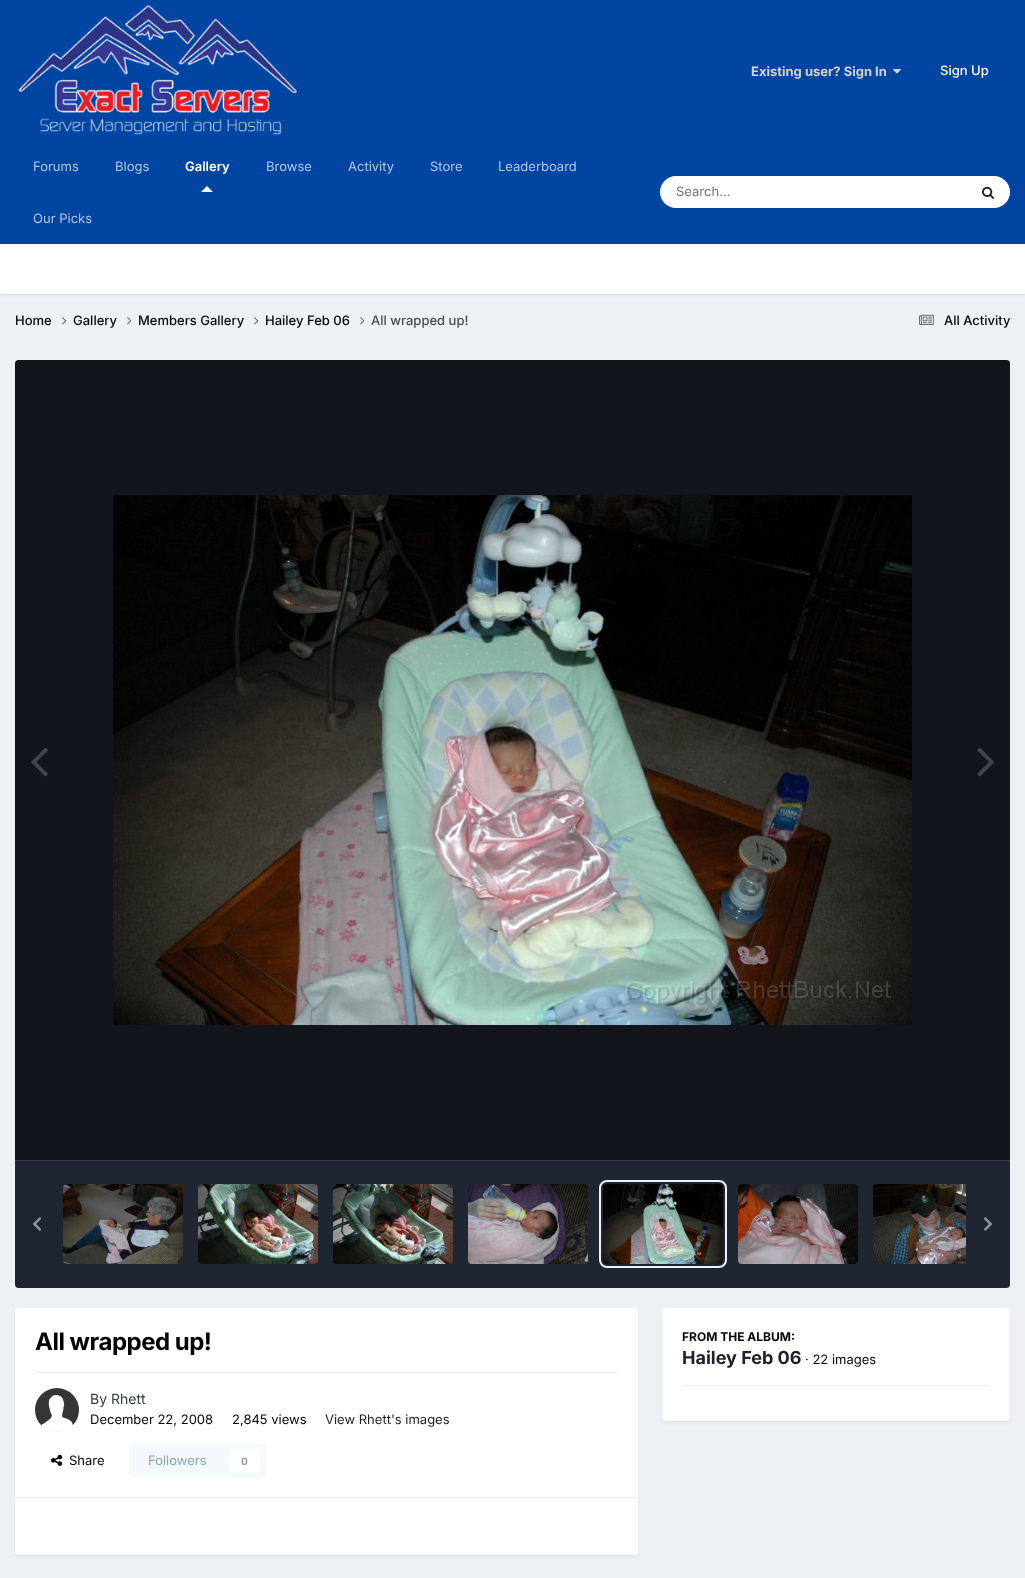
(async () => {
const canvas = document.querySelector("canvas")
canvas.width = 1025
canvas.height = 1578
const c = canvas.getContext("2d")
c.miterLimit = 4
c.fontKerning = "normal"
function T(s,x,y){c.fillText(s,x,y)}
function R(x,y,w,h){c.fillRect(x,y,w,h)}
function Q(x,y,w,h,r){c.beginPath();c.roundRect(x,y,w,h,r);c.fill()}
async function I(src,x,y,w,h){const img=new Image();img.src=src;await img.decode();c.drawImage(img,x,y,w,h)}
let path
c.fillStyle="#edf0f4"
R(0,0,1025,1578)
c.fillStyle="#0045a1"
R(0,0,1025,244)
await I("1.png",18,5,279,130)
c.font="bold 13px Inter"
c.fillStyle="#d2d2d2"
T("Existing user? Sign In",751,76)
await I("2.png",893,69,8,5)
c.font="500 13px Inter"
c.fillStyle="#fff"
T("Sign Up",940,75)
c.font="13px Inter"
c.fillStyle="#b3c7e3"
T("Forums",33,171)
T("Blogs",115,171)
c.font="600 13px Inter"
c.fillStyle="#fff"
T("Gallery",185,171)
path = new Path2D("M213 192h-12l6-6z")
c.fill(path)
c.font="13px Inter"
c.fillStyle="#b3c7e3"
T("Browse",266,171)
T("Activity",348,171)
T("Store",430,171)
T("Leaderboard",498,171)
T("Our Picks",33,223)
c.fillStyle="#fff"
Q(660,176,350,32,16)
c.fillStyle="#757575"
T("Search...",676,196)
await I("3.png",982,186,12,13)
c.fillStyle="#0000001a"
c.filter="blur(1px)"
c.beginPath()
c.rect(0,245,1025,50)
c.fill()
c.filter="none"
c.fillStyle="#fff"
R(0,244,1025,50)
c.font="500 13px Inter"
c.fillStyle="#050607"
T("Home",15,325)
await I("4.png",62,317,5,8)
T("Gallery",73,325)
await I("4.png",127,317,5,8)
T("Members Gallery",138,325)
await I("4.png",254,317,5,8)
T("Hailey Feb 06",265,325)
await I("4.png",360,317,5,8)
c.fillStyle="#4b4c4e"
T("All wrapped up!",371,325)
await I("5.png",919,314,15,11)
c.fillStyle="#050607"
T("All Activity",944,325)
c.fillStyle="#2d3748"
c.beginPath()
c.roundRect(15,360,995,800,[4,4,0,0])
c.fill()
c.fillStyle="#00000099"
c.beginPath()
c.roundRect(15,360,995,800,[4,4,0,0])
c.fill()
await I("6.png",113,495,799,530)
await I("7.png",31,748,17,29)
await I("8.png",977,748,17,29)
c.fillStyle="#2d3748"
c.beginPath()
c.roundRect(15,1160,995,128,[0,0,4,4])
c.fill()
c.fillStyle="#0000004d"
c.beginPath()
c.roundRect(15,1160,995,128,[0,0,4,4])
c.fill()
c.fillStyle="#363c47"
R(15,1160,995,1)
await I("9.png",63,1184,120,80)
await I("10.png",198,1184,120,80)
await I("11.png",333,1184,120,80)
await I("12.png",468,1184,120,80)
c.beginPath()
c.roundRect(600,1181,126,86,7)
c.strokeStyle="#edf2f7"
c.lineWidth=2
c.stroke()
await I("13.png",603,1184,120,80)
await I("14.png",738,1184,120,80)
await I("15.png",873,1184,93,80)
await I("16.png",33,1217,9,14)
await I("17.png",983,1217,9,14)
c.fillStyle="#2d37481a"
c.filter="blur(2px)"
c.beginPath()
c.roundRect(16,1311,621,245,3)
c.fill()
c.filter="none"
c.fillStyle="#fff"
Q(15,1308,623,247,4)
c.letterSpacing="-0.5px"
c.font="bold 24px Inter"
c.fillStyle="#000"
T("All wrapped up!",35,1350)
c.fillStyle="#efeff0"
R(35,1372,583,1)
await I("18.png",35,1388,44,44)
c.letterSpacing="0px"
c.font="14px Inter"
c.fillStyle="#353c41"
T("By Rhett",90,1404)
c.font="13px Inter"
c.fillStyle="#050607"
T("December 22, 2008",90,1424)
T("2,845 views",232,1424)
c.fillStyle="#1a202c"
T("View Rhett's images",325,1424)
await I("19.png",51,1454,12,12)
c.fillStyle="#050607"
T("Share",69,1465)
c.fillStyle="#f4f9fd"
Q(129,1444,137,33,4)
c.fillStyle="#87a6bc"
T("Followers",148,1465)
c.fillStyle="#fff"
Q(229,1449,32,24,4)
c.font="bold 10px Inter"
c.fillStyle="#9a9ea0"
T("0",241,1465)
c.fillStyle="#ebecec"
R(15,1497,623,1)
c.fillStyle="#2d37481a"
c.filter="blur(2px)"
c.beginPath()
c.roundRect(663,1311,346,111,3)
c.fill()
c.filter="none"
c.fillStyle="#fff"
Q(662,1308,348,113,4)
c.font="bold 12px Inter"
c.fillStyle="#050607"
T("FROM THE ALBUM:",682,1341)
c.font="bold 18px Inter"
c.fillStyle="#1a202c"
T("Hailey Feb 06",682,1364)
c.font="13px Inter"
c.fillStyle="#050607"
T("· 22 images",805,1364)
c.fillStyle="#efeff0"
R(682,1385,308,1)
})()
